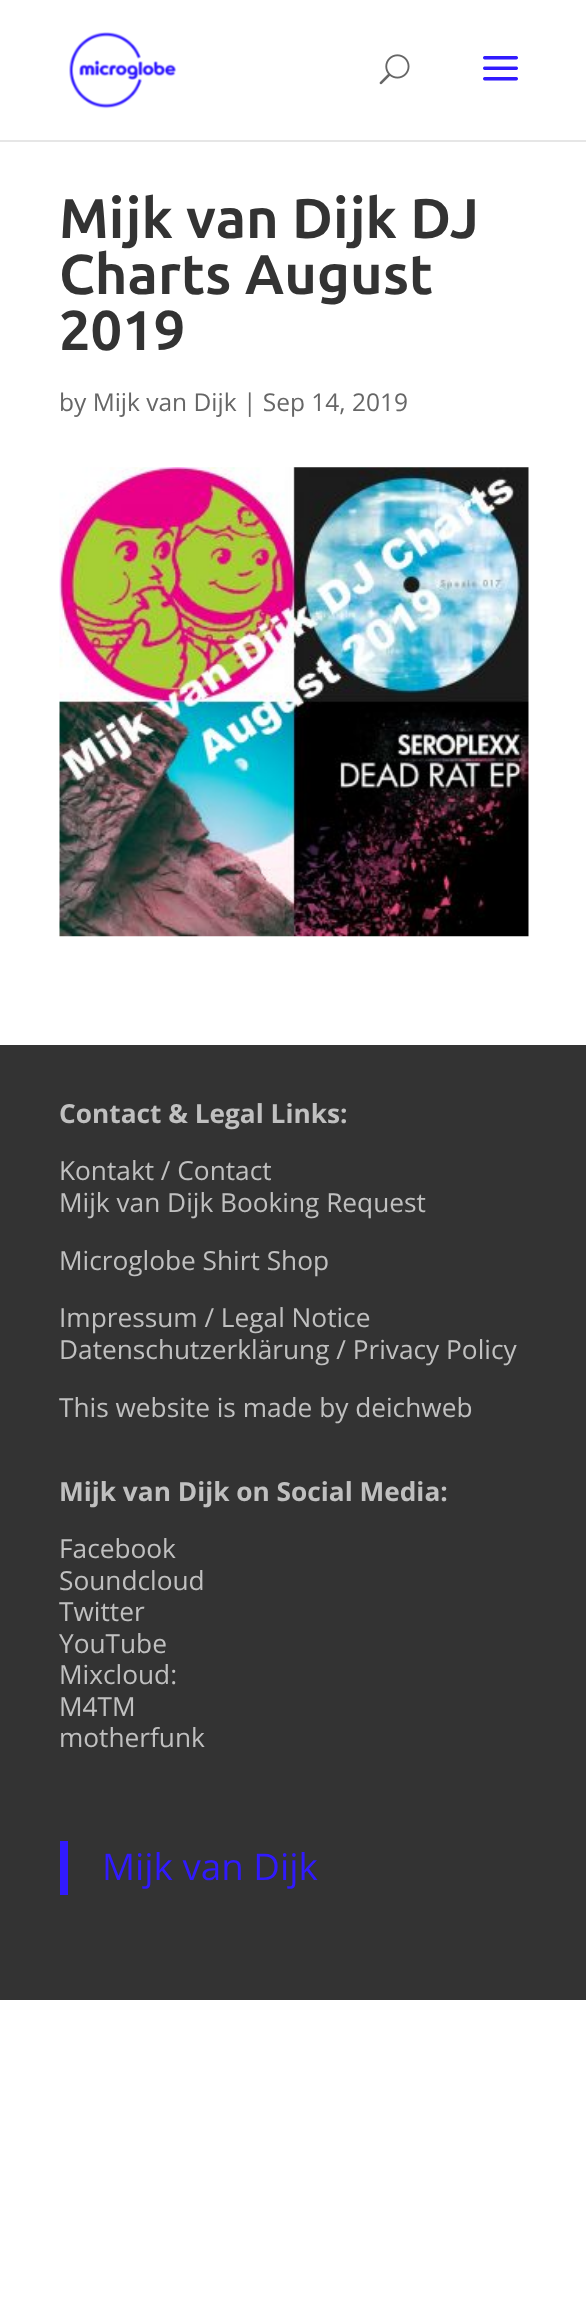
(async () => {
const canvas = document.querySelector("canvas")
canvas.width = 586
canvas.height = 2299
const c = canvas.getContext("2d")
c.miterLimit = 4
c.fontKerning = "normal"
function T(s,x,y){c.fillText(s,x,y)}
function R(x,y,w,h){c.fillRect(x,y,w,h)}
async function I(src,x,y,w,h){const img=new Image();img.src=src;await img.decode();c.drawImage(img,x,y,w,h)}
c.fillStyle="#fff"
R(0,0,586,2299)
c.fillStyle="#e6e6e6"
R(0,140,586,2)
await I("1.png",69,32,108,77)
await I("2.png",379,54,31,31)
await I("3.png",483,56,35,25)
c.font="bold 56px Ubuntu"
c.fillStyle="#333"
T("Mijk van Dijk DJ",59,238)
T("Charts August",59,294)
T("2019",59,350)
c.font="24.5px Open Sans"
c.fillStyle="#666"
T("by Mijk van Dijk | Sep 14, 2019",59,411)
await I("4.png",59,467,470,470)
c.fillStyle="#333"
R(0,1045,586,955)
c.font="bold 26.25px Open Sans"
c.fillStyle="#c0c0c0"
T("Contact & Legal Links:",59,1123)
c.font="26.25px Open Sans"
T("Kontakt / Contact",59,1180)
T("Mijk van Dijk Booking Request",59,1212)
T("Microglobe Shirt Shop",59,1270)
T("Impressum / Legal Notice",59,1327)
T("Datenschutzerklärung / Privacy Policy",59,1359)
T("This website is made by deichweb",59,1417)
c.font="bold 26.25px Open Sans"
T("Mijk van Dijk on Social Media:",59,1501)
c.font="26.25px Open Sans"
T("Facebook",59,1558)
T("Soundcloud",59,1590)
T("Twitter",59,1621)
T("YouTube",59,1653)
T("Mixcloud:",59,1684)
T("M4TM",59,1716)
T("motherfunk",59,1747)
c.fillStyle="#311afe"
R(60,1841,8,54)
c.font="36.75px Open Sans"
T("Mijk van Dijk",102,1880)
})()
